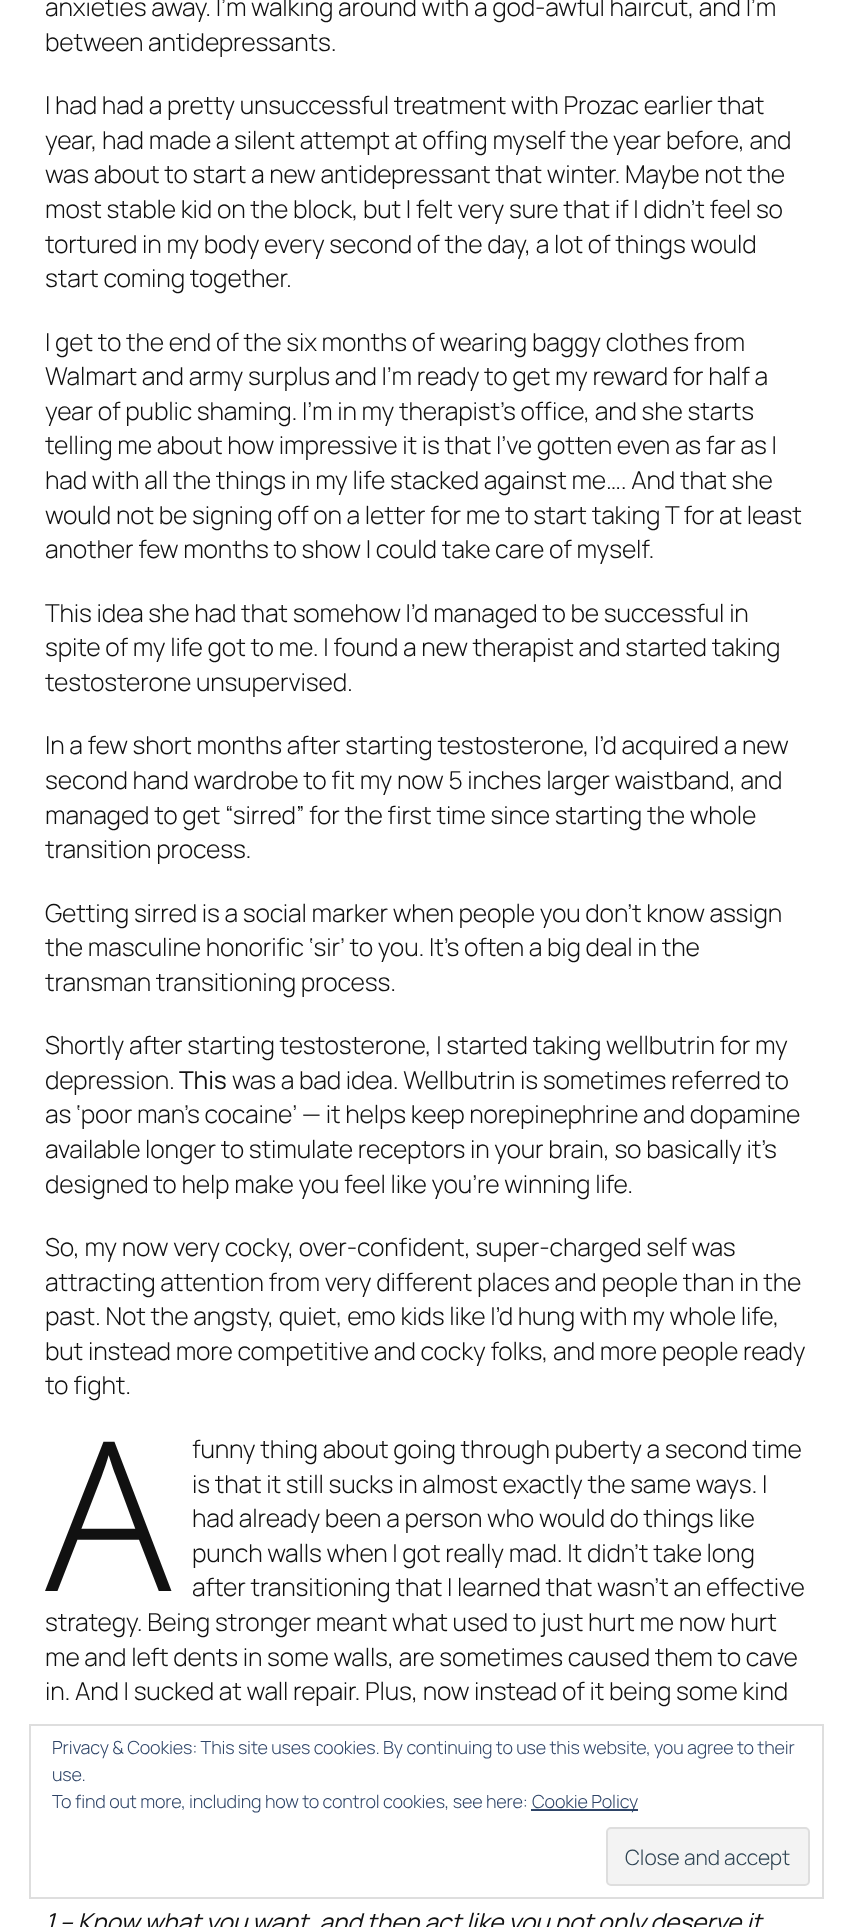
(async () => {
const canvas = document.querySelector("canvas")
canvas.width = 851
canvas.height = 1927
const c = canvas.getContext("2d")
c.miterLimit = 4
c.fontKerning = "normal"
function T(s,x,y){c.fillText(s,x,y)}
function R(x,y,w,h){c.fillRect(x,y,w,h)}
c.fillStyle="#fff"
R(0,0,851,1927)
c.letterSpacing="-0.15px"
c.font="300 24.75px Manrope"
c.fillStyle="#111"
T("anxieties away. I’m walking around with a god-awful haircut, and I’m",45,16)
T("between antidepressants.",45,51)
T("I had had a pretty unsuccessful treatment with Prozac earlier that",45,114)
T("year, had made a silent attempt at offing myself the year before, and",45,149)
T("was about to start a new antidepressant that winter. Maybe not the",45,183)
T("most stable kid on the block, but I felt very sure that if I didn’t feel so",45,218)
T("tortured in my body every second of the day, a lot of things would",45,253)
T("start coming together.",45,287)
T("I get to the end of the six months of wearing baggy clothes from",45,351)
T("Walmart and army surplus and I’m ready to get my reward for half a",45,385)
T("year of public shaming. I’m in my therapist’s office, and she starts",45,420)
T("telling me about how impressive it is that I’ve gotten even as far as I",45,454)
T("had with all the things in my life stacked against me…. And that she",45,489)
T("would not be signing off on a letter for me to start taking T for at least",45,524)
T("another few months to show I could take care of myself.",45,558)
T("This idea she had that somehow I’d managed to be successful in",45,622)
T("spite of my life got to me. I found a new therapist and started taking",45,656)
T("testosterone unsupervised.",45,691)
T("In a few short months after starting testosterone, I’d acquired a new",45,754)
T("second hand wardrobe to fit my now 5 inches larger waistband, and",45,789)
T("managed to get “sirred” for the first time since starting the whole",45,824)
T("transition process.",45,858)
T("Getting sirred is a social marker when people you don’t know assign",45,922)
T("the masculine honorific ‘sir’ to you. It’s often a big deal in the",45,956)
T("transman transitioning process.",45,991)
T("Shortly after starting testosterone, I started taking wellbutrin for my",45,1054)
T("depression.",45,1089)
c.font="24.75px Manrope"
T("This",179,1089)
c.font="300 24.75px Manrope"
T("was a bad idea. Wellbutrin is sometimes referred to",232,1089)
T("as ‘poor man’s cocaine’ — it helps keep norepinephrine and dopamine",45,1123)
T("available longer to stimulate receptors in your brain, so basically it’s",45,1158)
T("designed to help make you feel like you’re winning life.",45,1193)
T("So, my now very cocky, over-confident, super-charged self was",45,1256)
T("attracting attention from very different places and people than in the",45,1291)
T("past. Not the angsty, quiet, emo kids like I’d hung with my whole life,",45,1325)
T("but instead more competitive and cocky folks, and more people ready",45,1360)
T("to fight.",45,1394)
c.font="300 208px Noto Sans"
T("A",45,1591)
c.font="300 24.75px Manrope"
T("funny thing about going through puberty a second time",192,1458)
T("is that it still sucks in almost exactly the same ways. I",192,1493)
T("had already been a person who would do things like",192,1527)
T("punch walls when I got really mad. It didn’t take long",192,1562)
T("after transitioning that I learned that wasn’t an effective",192,1596)
T("strategy. Being stronger meant what used to just hurt me now hurt",45,1631)
T("me and left dents in some walls, are sometimes caused them to cave",45,1666)
T("in. And I sucked at wall repair. Plus, now instead of it being some kind",45,1700)
c.font="italic 24.75px Manrope"
T("1 – Know what you want, and then act like you not only deserve it,",45,1931)
c.strokeStyle="#dedede"
c.lineWidth=2
c.strokeRect(30,1725,793,173)
c.font="300 18px Manrope"
c.fillStyle="#2e4467"
T("Privacy & Cookies: This site uses cookies. By continuing to use this website, you agree to their",52,1754)
T("use.",52,1781)
T("To find out more, including how to control cookies, see here:",52,1808)
R(531,1809,107,2)
T("Cookie Policy",532,1808)
c.fillStyle="#f3f3f3"
c.beginPath()
c.roundRect(607,1828,202,57,4)
c.fill()
c.stroke()
c.letterSpacing="0px"
c.font="300 21px Manrope"
c.fillStyle="#2e4453"
T("Close and accept",625,1865)
})()
